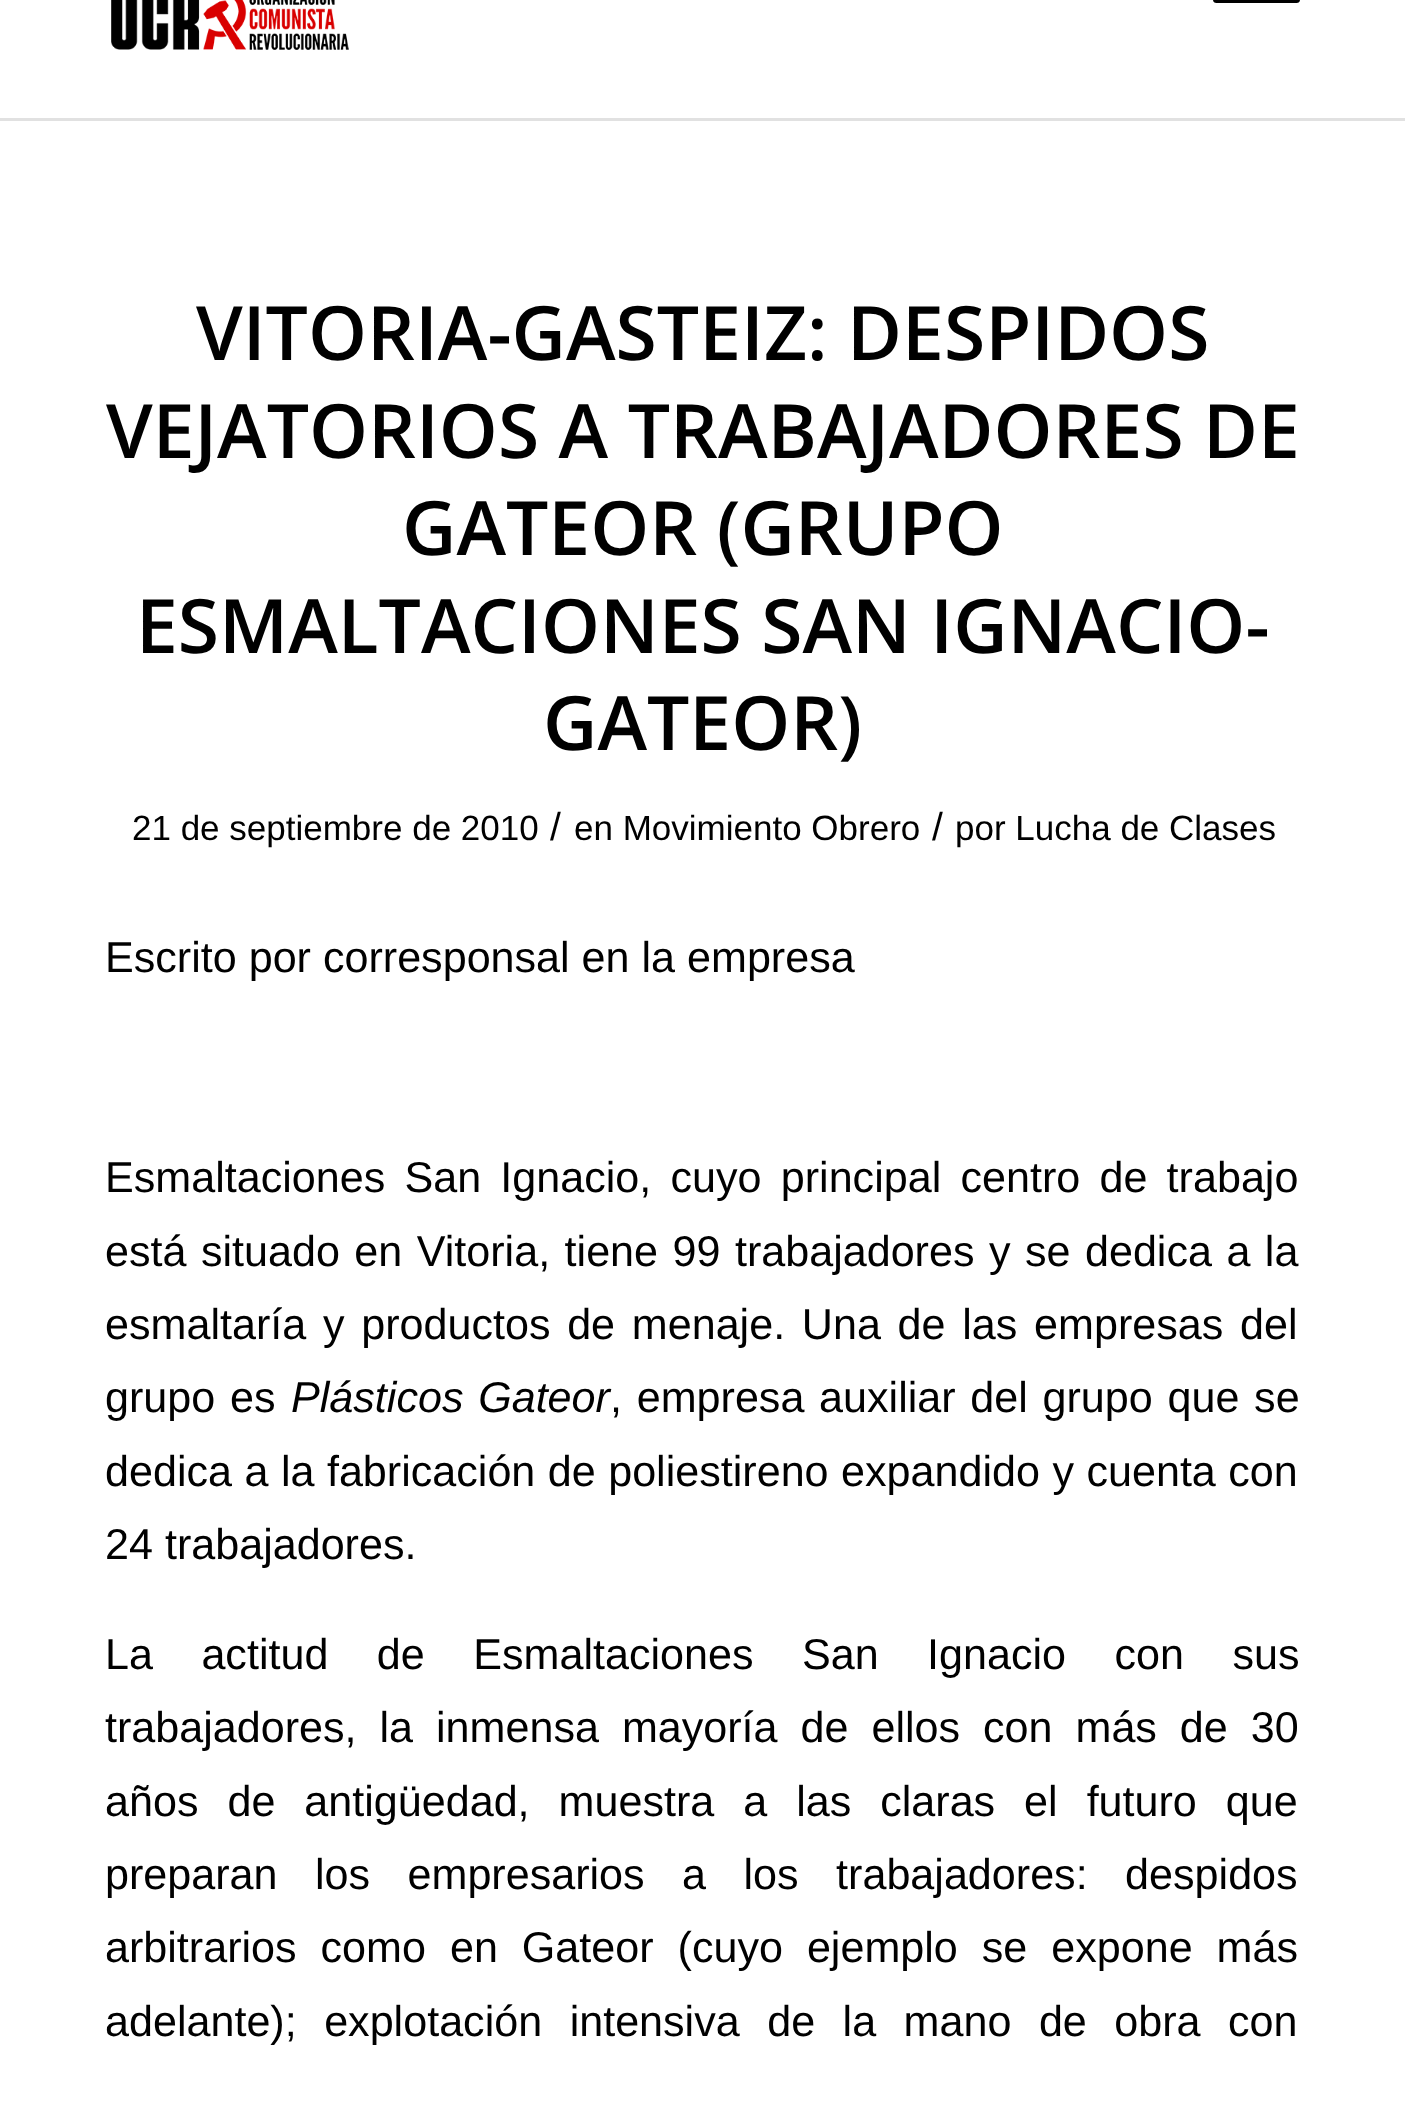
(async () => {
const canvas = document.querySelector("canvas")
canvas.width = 1405
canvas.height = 2101
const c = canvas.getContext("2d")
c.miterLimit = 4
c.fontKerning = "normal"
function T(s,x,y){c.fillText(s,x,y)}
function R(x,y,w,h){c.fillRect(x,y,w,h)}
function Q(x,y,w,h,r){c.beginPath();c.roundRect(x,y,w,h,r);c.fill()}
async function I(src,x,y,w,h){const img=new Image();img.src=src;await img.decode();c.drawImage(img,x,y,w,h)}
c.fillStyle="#fff"
R(0,0,1405,2101)
c.fillStyle="#e1e1e1"
R(0,118,1405,3)
await I("1.png",111,0,238,50)
c.fillStyle="#000"
Q(1213,-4,87,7,4)
c.font="600 75px Open Sans"
T("VITORIA-GASTEIZ: DESPIDOS",196,360)
T("VEJATORIOS A TRABAJADORES DE",106,458)
T("GATEOR (GRUPO",402,555)
T("ESMALTACIONES SAN IGNACIO-",136,653)
T("GATEOR)",543,750)
c.font="35px Liberation Sans"
T("21 de septiembre de 2010",132,840)
c.font="39px Liberation Sans"
T("/",550,840)
c.font="35px Liberation Sans"
T("en Movimiento Obrero",574,840)
c.font="39px Liberation Sans"
T("/",932,840)
c.font="35px Liberation Sans"
T("por Lucha de Clases",955,840)
c.font="43.1px Liberation Sans"
T("Escrito por corresponsal en la empresa",105,972)
c.wordSpacing="7.25px"
T("Esmaltaciones San Ignacio, cuyo principal centro de trabajo",105,1192)
c.wordSpacing="2.5px"
T("está situado en Vitoria, tiene 99 trabajadores y se dedica a la",105,1266)
c.wordSpacing="4.75px"
T("esmaltaría y productos de menaje. Una de las empresas del",105,1339)
c.wordSpacing="2.75px"
T("grupo es",105,1412)
c.font="italic 43.1px Liberation Sans"
T("Plásticos Gateor",291,1412)
c.font="43.1px Liberation Sans"
T(", empresa auxiliar del grupo que se",610,1412)
c.wordSpacing="0.5px"
T("dedica a la fabricación de poliestireno expandido y cuenta con",105,1486)
c.wordSpacing="0px"
T("24 trabajadores.",105,1559)
c.wordSpacing="36.5px"
T("La actitud de Esmaltaciones San Ignacio con sus",105,1669)
c.wordSpacing="11px"
T("trabajadores, la inmensa mayoría de ellos con más de 30",105,1742)
c.wordSpacing="17px"
T("años de antigüedad, muestra a las claras el futuro que",105,1816)
c.wordSpacing="25.5px"
T("preparan los empresarios a los trabajadores: despidos",105,1889)
c.wordSpacing="12px"
T("arbitrarios como en Gateor (cuyo ejemplo se expone más",105,1962)
c.wordSpacing="15.5px"
T("adelante); explotación intensiva de la mano de obra con",105,2036)
})()
